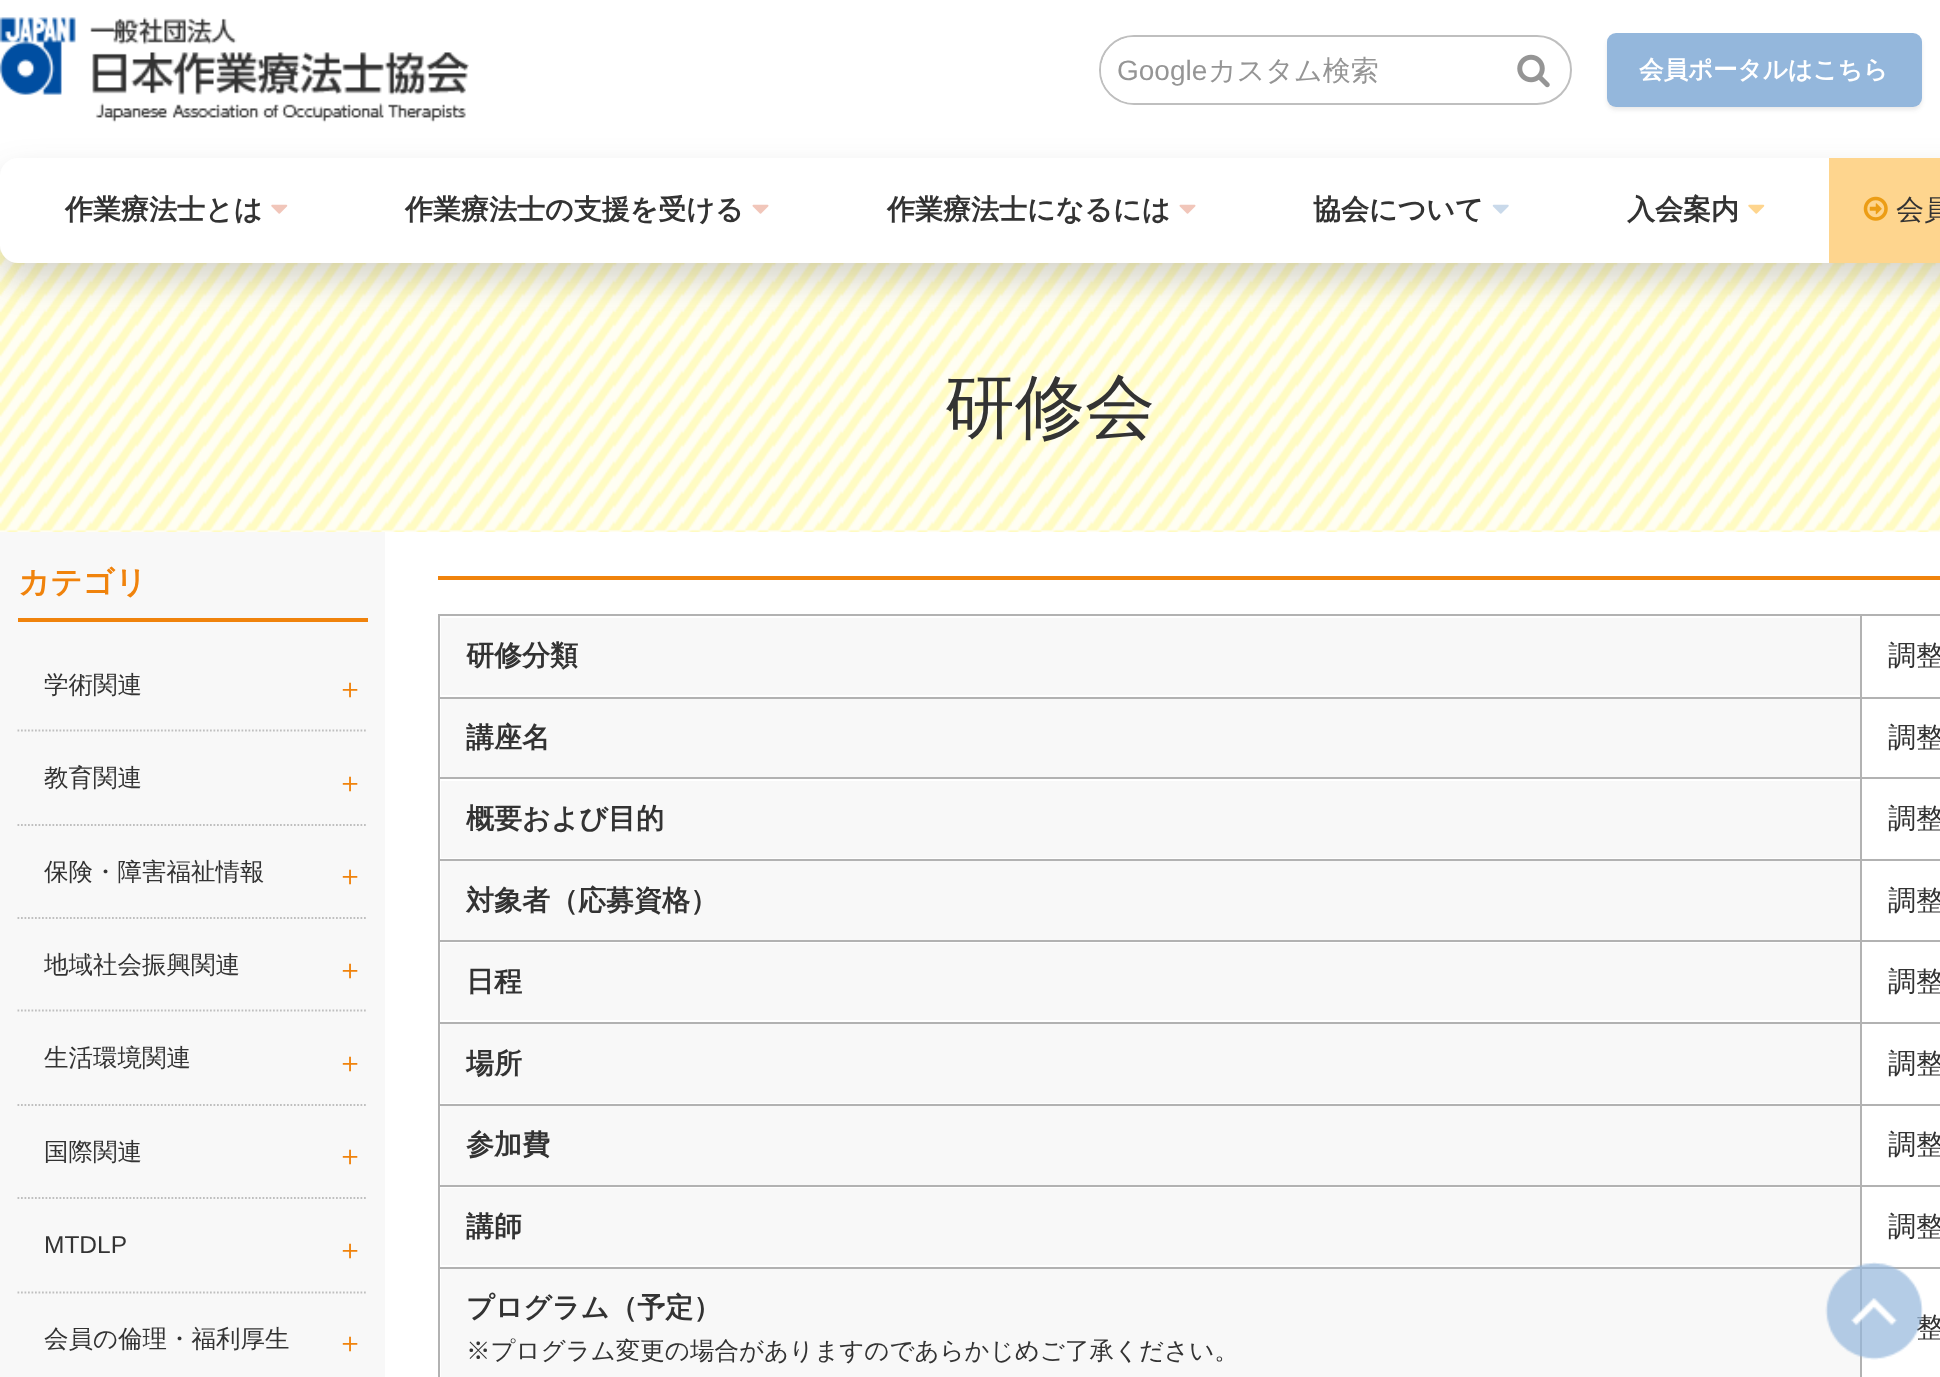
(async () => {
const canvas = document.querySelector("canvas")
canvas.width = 1940
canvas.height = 1377
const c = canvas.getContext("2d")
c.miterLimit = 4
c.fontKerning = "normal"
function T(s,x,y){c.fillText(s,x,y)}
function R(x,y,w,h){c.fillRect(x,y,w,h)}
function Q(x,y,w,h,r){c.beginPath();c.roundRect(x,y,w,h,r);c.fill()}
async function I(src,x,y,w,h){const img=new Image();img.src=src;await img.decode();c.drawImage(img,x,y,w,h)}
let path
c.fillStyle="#fff"
R(0,0,1940,1377)
await I("1.png",0,17,469,106)
c.beginPath()
c.roundRect(1100,36,471,68,34)
c.strokeStyle="#bfbfbf"
c.lineWidth=2
c.stroke()
c.beginPath()
c.roundRect(1101,37,408,66,[33,0,0,33])
c.fill()
c.font="28px Liberation Sans"
c.fillStyle="#959595"
T("Google",1117,80)
c.font="500 28px WenQuanYi Zen Hei"
T("カスタム検索",1208,80)
await I("2.png",1517,54,33,34)
c.fillStyle="#3333331a"
c.filter="blur(2px)"
c.beginPath()
c.roundRect(1607,37,315,73,9)
c.fill()
c.filter="none"
c.fillStyle="#94b7dc"
Q(1607,33,315,74,9)
c.font="bold 24.5px WenQuanYi Zen Hei"
c.fillStyle="#fff"
T("会員ポータルはこちら",1639,78)
await I("8.png",0,245,1940,287)
c.fillStyle="#33333333"
c.filter="blur(17.5px)"
c.beginPath()
c.roundRect(0,175,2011,105,18)
c.fill()
c.filter="none"
c.fillStyle="#fff"
c.beginPath()
c.roundRect(0,158,1829,105,[18,0,0,18])
c.fill()
c.font="bold 28px WenQuanYi Zen Hei"
c.fillStyle="#333"
T("作業療法士とは",65,219)
await I("3.png",271,204,17,10)
T("作業療法士の支援を受ける",405,219)
await I("4.png",752,204,17,10)
T("作業療法士になるには",887,219)
await I("4.png",1179,204,17,10)
T("協会について",1313,219)
await I("5.png",1492,204,17,10)
T("入会案内",1627,219)
await I("6.png",1748,204,17,10)
c.fillStyle="#fed58e"
R(1829,158,111,105)
await I("7.png",1863,196,25,25)
c.font="500 28px WenQuanYi Zen Hei"
c.fillStyle="#333"
T("会員",1896,219)
c.font="500 70px WenQuanYi Zen Hei"
T("研修会",945,431)
c.fillStyle="#f8f8f8"
R(0,532,385,845)
c.fillStyle="#f0830c"
R(18,618,350,4)
c.font="bold 31.5px WenQuanYi Zen Hei"
T("カテゴリ",18,593)
path = new Path2D("M17.5 730.5h350")
c.lineWidth=1.8
c.setLineDash([1.75,1.75])
c.stroke(path)
c.font="500 24.5px WenQuanYi Zen Hei"
c.fillStyle="#333"
T("学術関連",44,693)
c.font="500 28px WenQuanYi Zen Hei"
c.fillStyle="#f0830c"
T("＋",336,698)
path = new Path2D("M17.5 825h350")
c.stroke(path)
c.font="500 24.5px WenQuanYi Zen Hei"
c.fillStyle="#333"
T("教育関連",44,786)
c.font="500 28px WenQuanYi Zen Hei"
c.fillStyle="#f0830c"
T("＋",336,792)
path = new Path2D("M17.5 918h350")
c.stroke(path)
c.font="500 24.5px WenQuanYi Zen Hei"
c.fillStyle="#333"
T("保険・障害福祉情報",44,880)
c.font="500 28px WenQuanYi Zen Hei"
c.fillStyle="#f0830c"
T("＋",336,885)
path = new Path2D("M17.5 1010.5h350")
c.stroke(path)
c.font="500 24.5px WenQuanYi Zen Hei"
c.fillStyle="#333"
T("地域社会振興関連",44,973)
c.font="500 28px WenQuanYi Zen Hei"
c.fillStyle="#f0830c"
T("＋",336,979)
path = new Path2D("M17.5 1105h350")
c.stroke(path)
c.font="500 24.5px WenQuanYi Zen Hei"
c.fillStyle="#333"
T("生活環境関連",44,1066)
c.font="500 28px WenQuanYi Zen Hei"
c.fillStyle="#f0830c"
T("＋",336,1072)
path = new Path2D("M17.5 1198h350")
c.stroke(path)
c.font="500 24.5px WenQuanYi Zen Hei"
c.fillStyle="#333"
T("国際関連",44,1160)
c.font="500 28px WenQuanYi Zen Hei"
c.fillStyle="#f0830c"
T("＋",336,1165)
path = new Path2D("M17.5 1292.5h350")
c.stroke(path)
c.font="24.5px Liberation Sans"
c.fillStyle="#333"
T("MTDLP",44,1253)
c.font="500 28px WenQuanYi Zen Hei"
c.fillStyle="#f0830c"
T("＋",336,1259)
c.font="500 24.5px WenQuanYi Zen Hei"
c.fillStyle="#333"
T("会員の倫理・福利厚生",44,1347)
c.font="500 28px WenQuanYi Zen Hei"
c.fillStyle="#f0830c"
T("＋",336,1352)
R(438,576,1502,4)
c.fillStyle="#f8f8f8"
R(441,618,1419,77)
c.fillStyle="#b2b2b2"
R(1860,614,80,2)
R(1860,697,80,2)
R(1860,777,80,2)
R(1860,859,80,2)
R(1860,940,80,2)
R(1860,1022,80,2)
R(1860,1104,80,2)
R(1860,1185,80,2)
R(1860,1267,80,2)
R(1860,1267,2,110)
R(438,1267,1424,2)
R(1860,1185,2,84)
R(438,1185,1424,2)
R(1860,1104,2,83)
R(438,1104,1424,2)
R(1860,1022,2,84)
R(438,1022,1424,2)
R(1860,940,2,84)
R(438,940,1424,2)
R(1860,859,2,83)
R(438,859,1424,2)
R(1860,777,2,84)
R(438,777,1424,2)
R(1860,697,2,82)
R(438,697,1424,2)
R(1860,614,2,84)
R(438,614,1424,2)
R(438,1267,2,110)
R(438,1185,2,84)
R(438,1104,2,83)
R(438,1022,2,84)
R(438,940,2,84)
R(438,859,2,83)
R(438,777,2,84)
R(438,697,2,82)
R(438,614,2,84)
c.font="bold 28px WenQuanYi Zen Hei"
c.fillStyle="#333"
T("研修分類",466,665)
c.font="500 28px WenQuanYi Zen Hei"
T("調整",1888,665)
c.fillStyle="#f8f8f8"
R(441,699,1419,78)
c.font="bold 28px WenQuanYi Zen Hei"
c.fillStyle="#333"
T("講座名",466,747)
c.font="500 28px WenQuanYi Zen Hei"
T("調整",1888,747)
c.fillStyle="#f8f8f8"
R(441,781,1419,77)
c.font="bold 28px WenQuanYi Zen Hei"
c.fillStyle="#333"
T("概要および目的",466,828)
c.font="500 28px WenQuanYi Zen Hei"
T("調整",1888,828)
c.fillStyle="#f8f8f8"
R(441,861,1419,79)
c.font="bold 28px WenQuanYi Zen Hei"
c.fillStyle="#333"
T("対象者（応募資格）",466,910)
c.font="500 28px WenQuanYi Zen Hei"
T("調整",1888,910)
c.fillStyle="#f8f8f8"
R(441,943,1419,77)
c.font="bold 28px WenQuanYi Zen Hei"
c.fillStyle="#333"
T("日程",466,991)
c.font="500 28px WenQuanYi Zen Hei"
T("調整",1888,991)
c.fillStyle="#f8f8f8"
R(441,1024,1419,79)
c.font="bold 28px WenQuanYi Zen Hei"
c.fillStyle="#333"
T("場所",466,1073)
c.font="500 28px WenQuanYi Zen Hei"
T("調整",1888,1073)
c.fillStyle="#f8f8f8"
R(441,1106,1419,79)
c.font="bold 28px WenQuanYi Zen Hei"
c.fillStyle="#333"
T("参加費",466,1154)
c.font="500 28px WenQuanYi Zen Hei"
T("調整",1888,1154)
c.fillStyle="#f8f8f8"
R(441,1188,1419,77)
c.font="bold 28px WenQuanYi Zen Hei"
c.fillStyle="#333"
T("講師",466,1236)
c.font="500 28px WenQuanYi Zen Hei"
T("調整",1888,1236)
c.fillStyle="#f8f8f8"
R(441,1269,1419,108)
c.font="bold 28px WenQuanYi Zen Hei"
c.fillStyle="#333"
T("プログラム（予定）",466,1317)
c.font="500 24.5px WenQuanYi Zen Hei"
T("※プログラム変更の場合がありますのであらかじめご了承ください。",466,1359)
c.font="500 28px WenQuanYi Zen Hei"
T("整",1916,1337)
await I("9.png",1825,1262,98,98)
})()
